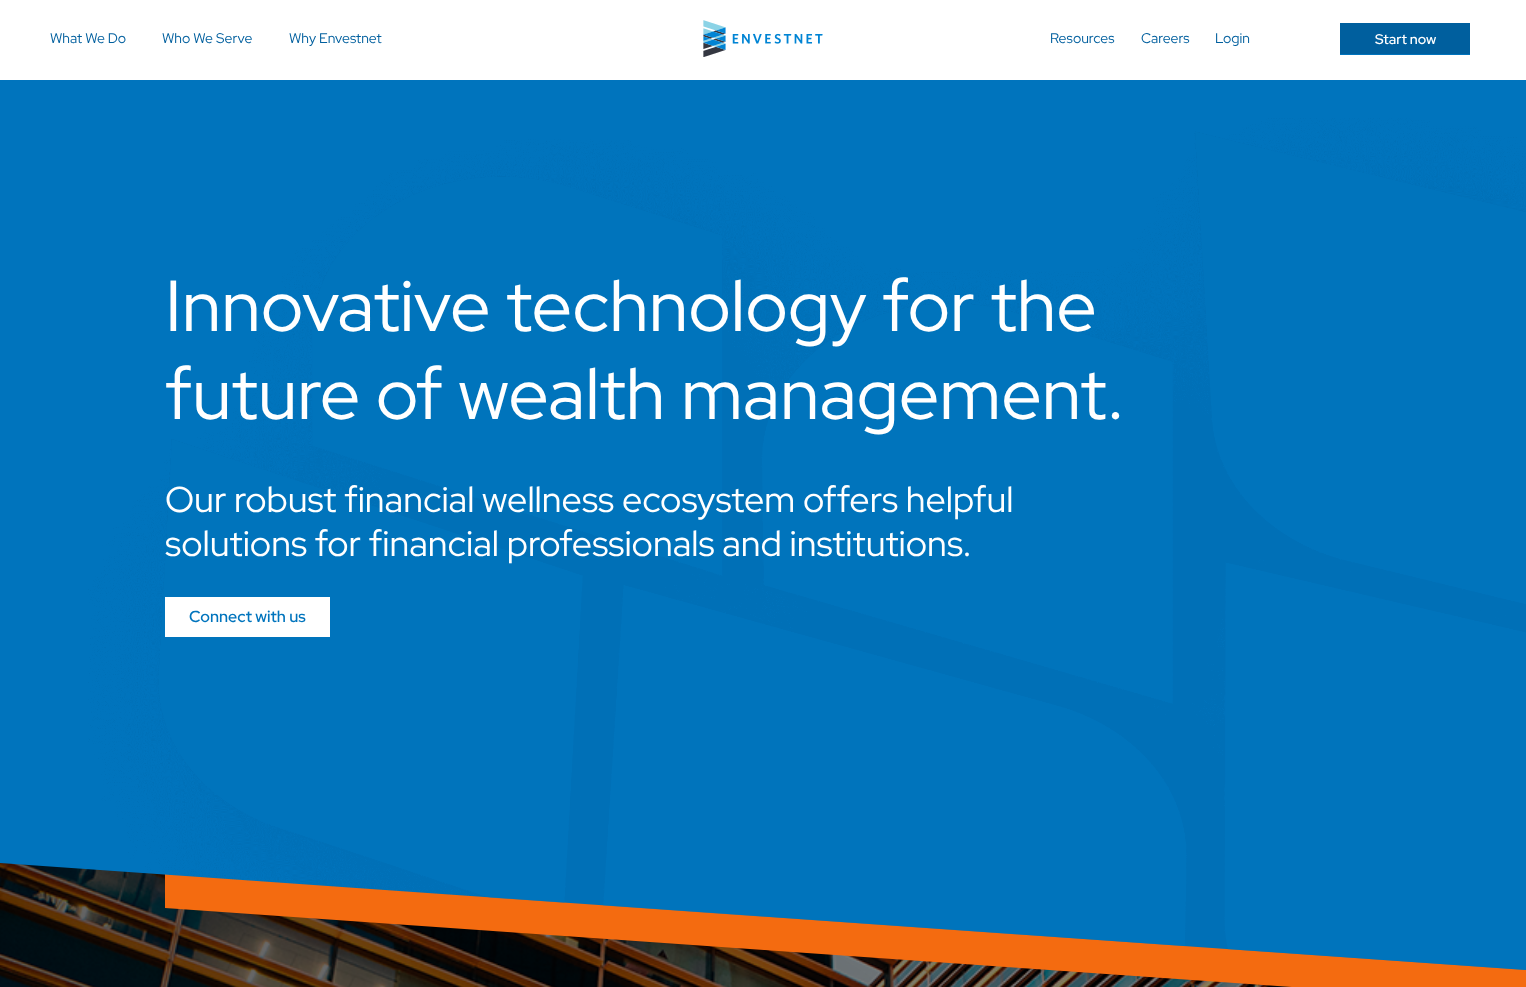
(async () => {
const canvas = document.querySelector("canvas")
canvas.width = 1526
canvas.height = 987
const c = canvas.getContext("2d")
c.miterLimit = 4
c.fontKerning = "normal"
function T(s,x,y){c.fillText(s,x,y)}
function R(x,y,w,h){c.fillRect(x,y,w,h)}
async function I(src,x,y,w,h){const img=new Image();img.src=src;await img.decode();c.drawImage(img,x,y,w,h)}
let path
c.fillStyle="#fff"
R(0,0,1526,987)
await I("3.png",0,863,1292,124)
c.fillStyle="#f46b10"
path = new Path2D("M165 45v863l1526 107v-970z")
c.fill(path)
c.fillStyle="#0074bd"
path = new Path2D("M0 0v863l1526 107v-970z")
c.fill(path)
c.fillStyle="#fff"
R(0,0,1526,80)
c.font="14px Red Hat Display"
c.fillStyle="#005f9e"
T("What We Do",50,43)
T("Who We Serve",162,43)
T("Why Envestnet",289,43)
await I("1.png",703,20,120,37)
T("Resources",1050,43)
T("Careers",1141,43)
T("Login",1215,43)
c.fillStyle="#0074bd"
R(1340,54,130,1)
c.save()
c.beginPath()
c.rect(1340,23,130,32)
c.clip()
c.fillStyle="#005f9e"
path = new Path2D("M1339 22h163l-32 32h-163z")
c.fill(path)
c.restore()
c.font="500 14px Red Hat Display"
c.fillStyle="#fff"
T("Start now",1375,44)
await I("2.png",88,118,1438,852)
c.font="72px Red Hat Display"
T("Innovative technology for the",165,331)
T("future of wealth management.",165,419)
c.font="36px Red Hat Display"
T("Our robust financial wellness ecosystem offers helpful",165,512)
T("solutions for financial professionals and institutions.",165,556)
c.save()
c.beginPath()
c.rect(165,597,165,40)
c.clip()
path = new Path2D("M155 597h206l-23 40h-206z")
c.fill(path)
c.restore()
c.font="500 16px Red Hat Display"
c.fillStyle="#0074bd"
T("Connect with us",189,622)
})()
